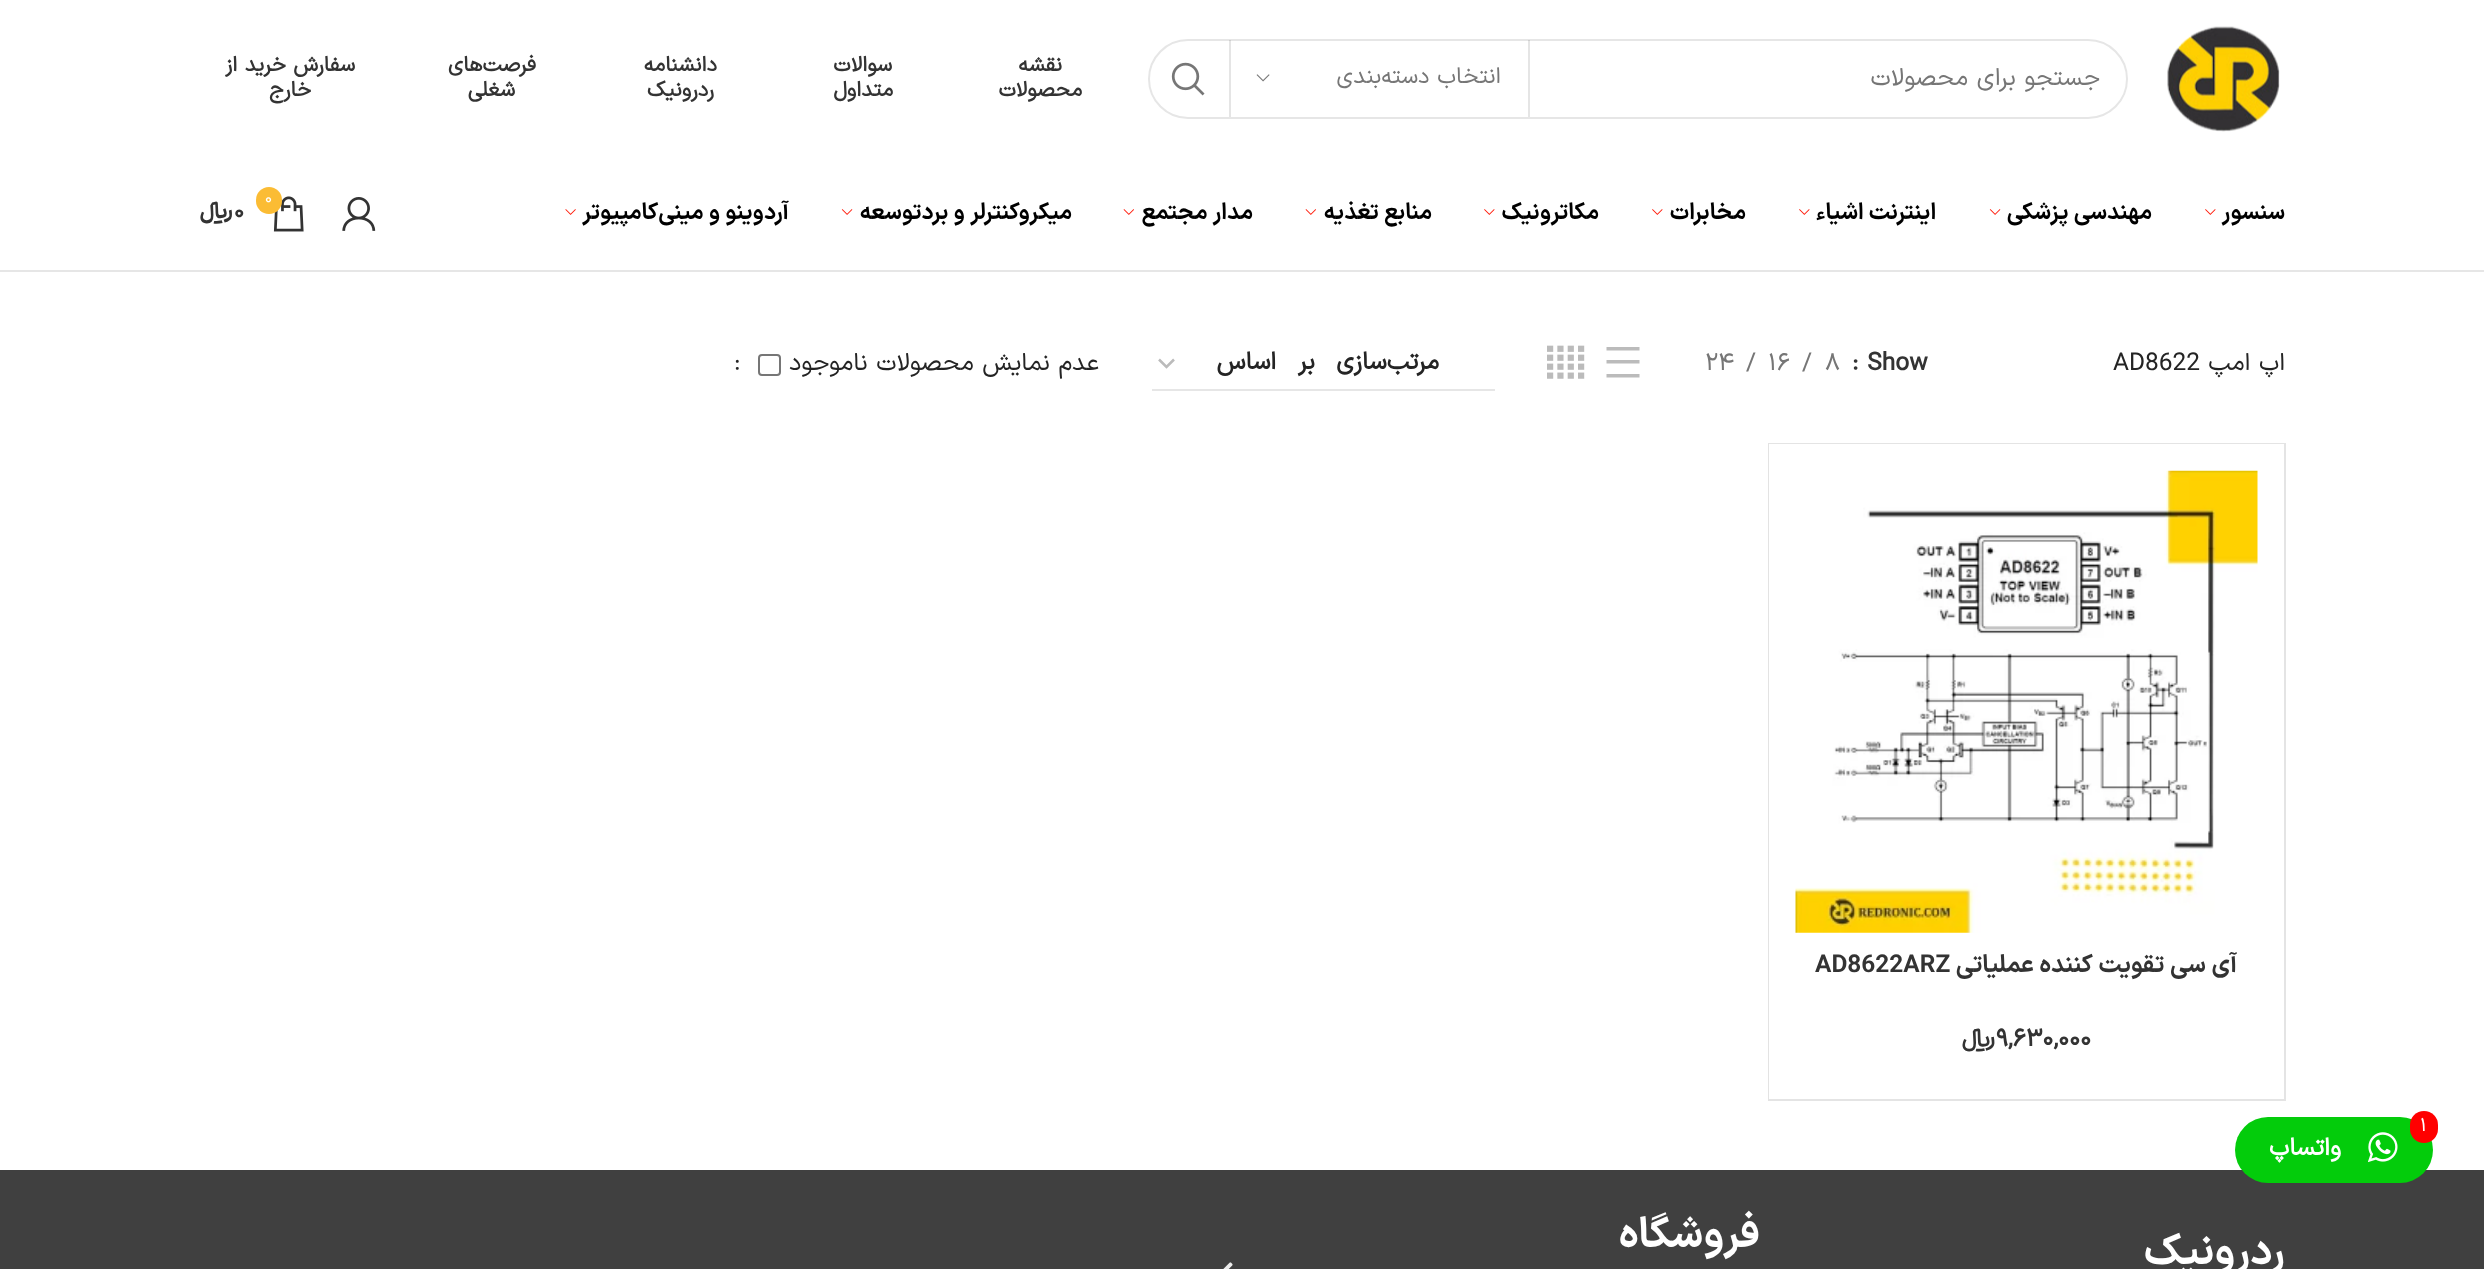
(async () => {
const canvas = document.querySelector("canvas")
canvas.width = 2484
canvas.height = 1269
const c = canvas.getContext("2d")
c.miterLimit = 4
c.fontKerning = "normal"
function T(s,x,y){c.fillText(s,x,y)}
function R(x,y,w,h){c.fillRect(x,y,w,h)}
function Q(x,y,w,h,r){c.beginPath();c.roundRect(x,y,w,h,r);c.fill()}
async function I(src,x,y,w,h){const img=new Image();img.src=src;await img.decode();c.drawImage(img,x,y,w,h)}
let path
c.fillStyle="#fff"
R(0,0,2484,1269)
c.fillStyle="#404040"
R(0,1170,2484,99)
c.fillStyle="#03cc0b"
Q(2235,1117,198,66,33)
c.fillStyle="#f00"
Q(2410,1111,28,32,14)
c.font="19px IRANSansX"
c.fillStyle="#fff"
T("۱",2420,1131)
await I("1.png",2368,1132,30,31)
c.direction="rtl"
c.font="bold 24.5px IRANSansX"
T("واتساپ",2341,1155)
await I("2.png",2167,26,113,106)
c.beginPath()
c.roundRect(1149,40,978,78,39)
c.strokeStyle="#e6e6e6"
c.lineWidth=2
c.stroke()
c.font="24.5px IRANSansX"
c.fillStyle="#767676"
T("جستجو برای محصولات",2100,85)
c.fillStyle="#0000001a"
R(1528,40,2,77)
R(1229,40,2,77)
c.font="22.75px IRANSansX"
c.fillStyle="#767676"
T("انتخاب دسته‌بندی",1501,83)
await I("3.png",1256,74,14,8)
await I("4.png",1171,62,34,34)
c.font="bold 21px IRANSansX"
c.fillStyle="#333"
T("نقشه",1062,71)
T("محصولات",1082,96)
T("سوالات",892,71)
T("متداول",893,96)
T("دانشنامه",717,71)
T("ردرونیک",714,96)
T("فرصت‌های",536,71)
T("شغلی",515,96)
T("سفارش خرید از",355,71)
T("خارج",311,96)
c.fillStyle="#e6e6e6"
R(0,270,2484,2)
c.font="bold 22.75px 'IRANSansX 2'"
c.fillStyle="#000"
T("سنسور",2285,219)
await I("5.png",2205,209,11,6)
T("مهندسی پزشکی",2152,219)
await I("6.png",1989,209,12,6)
T("اینترنت اشیاء",1936,219)
await I("5.png",1799,209,11,6)
T("مخابرات",1746,219)
await I("5.png",1652,209,11,6)
T("مکاترونیک",1599,219)
await I("5.png",1484,209,11,6)
T("منابع تغذیه",1432,219)
await I("7.png",1305,209,11,6)
T("مدار مجتمع",1253,219)
await I("7.png",1123,209,11,6)
T("میکروکنترلر و بردتوسعه",1072,219)
await I("6.png",841,209,12,6)
T("آردوینو و مینی‌کامپیوتر",789,219)
await I("8.png",565,209,11,6)
await I("9.png",342,197,34,34)
await I("10.png",273,196,31,36)
c.fillStyle="#fbbc34"
Q(256,187,26,27,13)
c.direction="ltr"
c.font="16px IRANSansX"
c.fillStyle="#fff"
T("۰",265,203)
c.font="bold 22.75px 'IRANSansX 2'"
c.fillStyle="#333"
T("۰",234,218)
c.direction="rtl"
T("﷼",233,218)
c.font="24.5px IRANSansX"
c.fillStyle="#242424"
T("اپ امپ",2285,370)
c.direction="ltr"
T("AD8622",2113,370)
c.font="bold 24.5px IRANSansX"
c.fillStyle="#333"
T("Show",1867,370)
T(":",1852,370)
c.font="24.5px IRANSansX"
c.fillStyle="#767676"
T("۸",1825,370)
T("/",1802,370)
T("۱۶",1768,370)
T("/",1746,370)
T("۲۴",1705,370)
c.fillStyle="#bbb"
path = new Path2D("M1606.5 347v3.5h33v-3.5zm0 27v3.5h33v-3.5zm33-14h-33v3.5h33z")
c.fill(path)
await I("11.png",1547,345,38,34)
path = new Path2D("M1159 359.5l7.5 7.5l7.5-7.5")
c.strokeStyle="#bbb"
c.lineWidth=2.5
c.stroke(path)
c.fillStyle="#e6e6e6"
R(1152,389,343,2)
c.wordSpacing="13px"
c.direction="rtl"
c.font="bold 24.5px IRANSansX"
c.fillStyle="#242424"
T("مرتب‌سازی بر اساس",1439,369)
c.wordSpacing="0px"
c.font="24.5px IRANSansX"
T("عدم نمایش محصولات ناموجود",1099,370)
c.beginPath()
c.roundRect(759,355,21,20,3)
c.strokeStyle="#767676"
c.lineWidth=2
c.stroke()
c.direction="ltr"
T(":",734,370)
c.fillStyle="#e4e4e4"
R(2284,443,2,658)
path = new Path2D("M1768 443h516v1h-515z")
c.fill(path)
path = new Path2D("M2284 1101h-516l1-2h515z")
c.fill(path)
c.fillStyle="#0000001c"
path = new Path2D("M1768 1101v-658l1 1v655z")
c.fill(path)
await I("12.png",1795,470,463,463)
c.direction="rtl"
c.font="bold 24.5px 'IRANSansX 2'"
c.fillStyle="#333"
T("آی‌ سی تقویت کننده عملیاتی",2237,972)
c.direction="ltr"
T("AD8622ARZ",1815,972)
c.font="bold 24.5px IRANSansX"
T("۹,۶۳۰,۰۰۰",1996,1046)
c.direction="rtl"
T("﷼",1995,1046)
c.font="bold 42px 'IRANSansX 2'"
c.fillStyle="#fff"
T("ردرونیک",2285,1264)
T("فروشگاه",1760,1247)
await I("13.png",1223,1262,10,7)
})()
